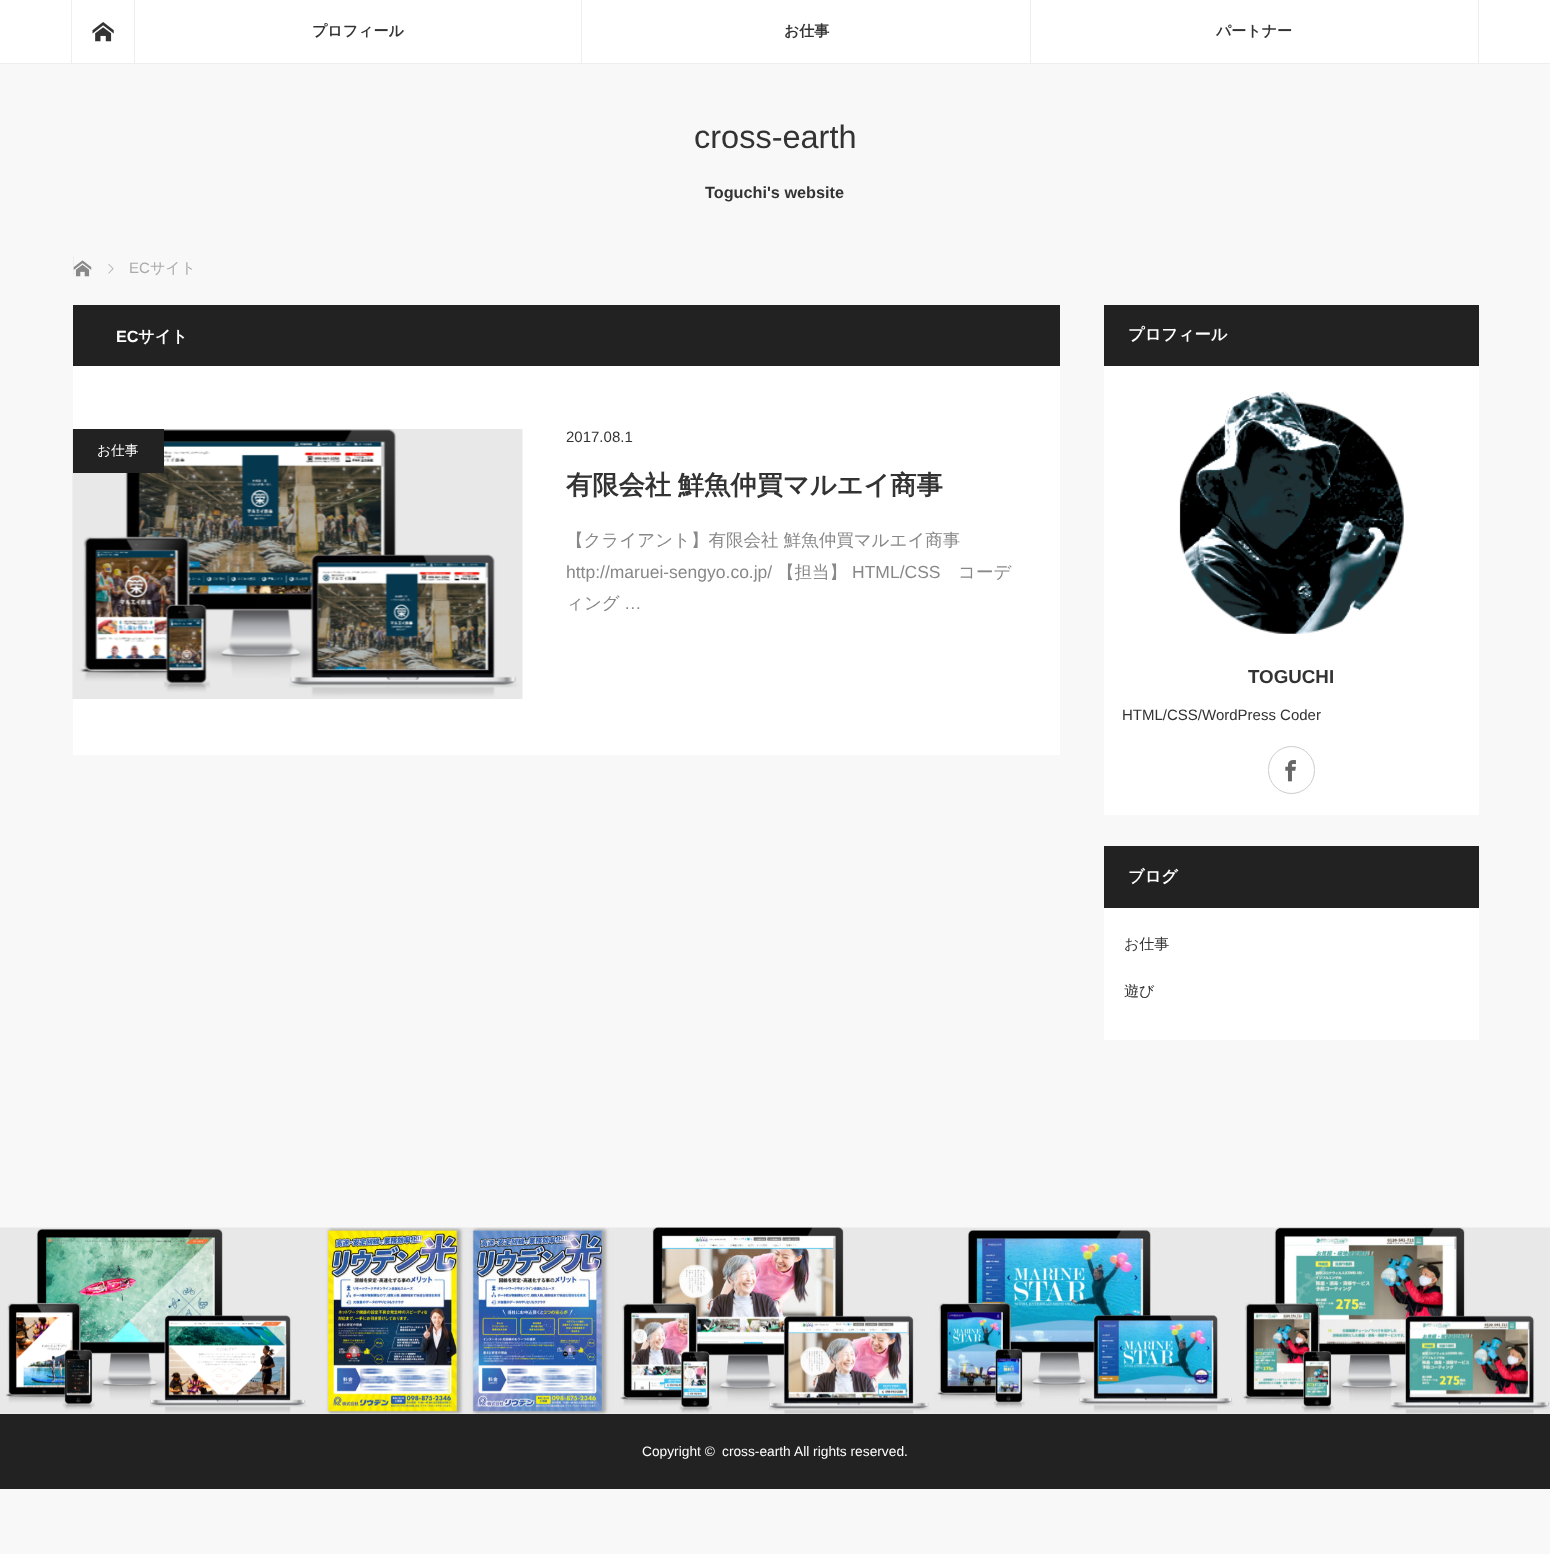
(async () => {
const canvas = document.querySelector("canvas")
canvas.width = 1550
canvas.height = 1554
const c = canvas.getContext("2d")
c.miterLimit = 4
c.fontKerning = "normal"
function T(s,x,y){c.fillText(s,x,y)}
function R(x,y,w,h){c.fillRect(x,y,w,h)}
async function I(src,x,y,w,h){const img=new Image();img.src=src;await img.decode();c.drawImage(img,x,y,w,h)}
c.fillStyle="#f8f8f8"
R(0,0,1550,1554)
c.fillStyle="#fff"
R(0,0,1550,63)
c.fillStyle="#eee"
R(0,63,1550,1)
R(1478,0,1,63)
R(71,0,1,63)
await I("1.png",92,22,22,20)
R(134,0,1,63)
c.font="bold 15px WenQuanYi Zen Hei"
c.fillStyle="#333"
T("プロフィール",312,36)
c.fillStyle="#eee"
R(581,0,1,63)
c.fillStyle="#333"
T("お仕事",784,36)
c.fillStyle="#eee"
R(1030,0,1,63)
c.fillStyle="#333"
T("パートナー",1216,36)
c.font="32.5px Liberation Sans"
T("cross-earth",694,148)
c.font="bold 16.25px Liberation Sans"
T("Toguchi's website",705,198)
c.fillStyle="#eee"
R(73,256,1,19)
await I("2.png",73,260,19,17)
await I("3.png",108,264,6,10)
c.font="15px Liberation Sans"
c.fillStyle="#aaa"
T("EC",129,273)
c.font="500 15px WenQuanYi Zen Hei"
T("サイト",150,273)
c.fillStyle="#fff"
R(73,366,987,389)
c.fillStyle="#222"
R(73,305,987,61)
c.font="bold 16.25px Liberation Sans"
c.fillStyle="#fff"
T("EC",116,342)
c.font="bold 16.25px WenQuanYi Zen Hei"
T("サイト",138,342)
await I("4.png",72,429,451,270)
c.font="15px Liberation Sans"
c.fillStyle="#333"
T("2017.08.1",566,442)
c.fillStyle="#222"
R(73,429,91,44)
c.font="500 13.75px WenQuanYi Zen Hei"
c.fillStyle="#fff"
T("お仕事",97,455)
c.wordSpacing="-1px"
c.font="bold 26.25px WenQuanYi Zen Hei"
c.fillStyle="#333"
T("有限会社 鮮魚仲買マルエイ商事",566,494)
c.wordSpacing="0px"
c.font="500 17.5px WenQuanYi Zen Hei"
c.fillStyle="#888"
T("【クライアント】有限会社 鮮魚仲買マルエイ商事",566,546)
c.font="17.5px Liberation Sans"
T("http://maruei-sengyo.co.jp/",566,578)
c.font="500 17.5px WenQuanYi Zen Hei"
T("【担当】",777,578)
c.font="17.5px Liberation Sans"
T("HTML/CSS",852,578)
c.font="500 17.5px WenQuanYi Zen Hei"
T("コーデ",958,578)
T("ィング",566,609)
c.font="17.5px Liberation Sans"
T("…",624,609)
c.fillStyle="#fff"
R(1104,366,375,449)
c.fillStyle="#222"
R(1104,305,375,61)
c.font="bold 16.25px WenQuanYi Zen Hei"
c.fillStyle="#fff"
T("プロフィール",1128,340)
await I("5.png",1179,391,225,243)
c.font="bold 18.75px Liberation Sans"
c.fillStyle="#333"
T("TOGUCHI",1248,683)
c.font="15px Liberation Sans"
T("HTML/CSS/WordPress Coder",1122,720)
c.beginPath()
c.roundRect(1268.5,746.5,46,47,23)
c.strokeStyle="#ccc"
c.stroke()
await I("6.png",1285,760,11,22)
c.fillStyle="#fff"
R(1104,908,375,132)
c.fillStyle="#222"
R(1104,846,375,62)
c.font="bold 16.25px WenQuanYi Zen Hei"
c.fillStyle="#fff"
T("ブログ",1128,882)
c.font="500 15px WenQuanYi Zen Hei"
c.fillStyle="#333"
T("お仕事",1124,949)
T("遊び",1124,996)
await I("7.png",0,1227,310,187)
await I("8.png",310,1227,310,187)
await I("9.png",620,1227,310,187)
await I("10.png",930,1227,310,187)
await I("11.png",1240,1227,310,187)
c.fillStyle="#222"
R(0,1414,1550,75)
c.font="13.75px Liberation Sans"
c.fillStyle="#fff"
T("Copyright ©",642,1456)
T("cross-earth",722,1456)
T("All rights reserved.",794,1456)
})()
